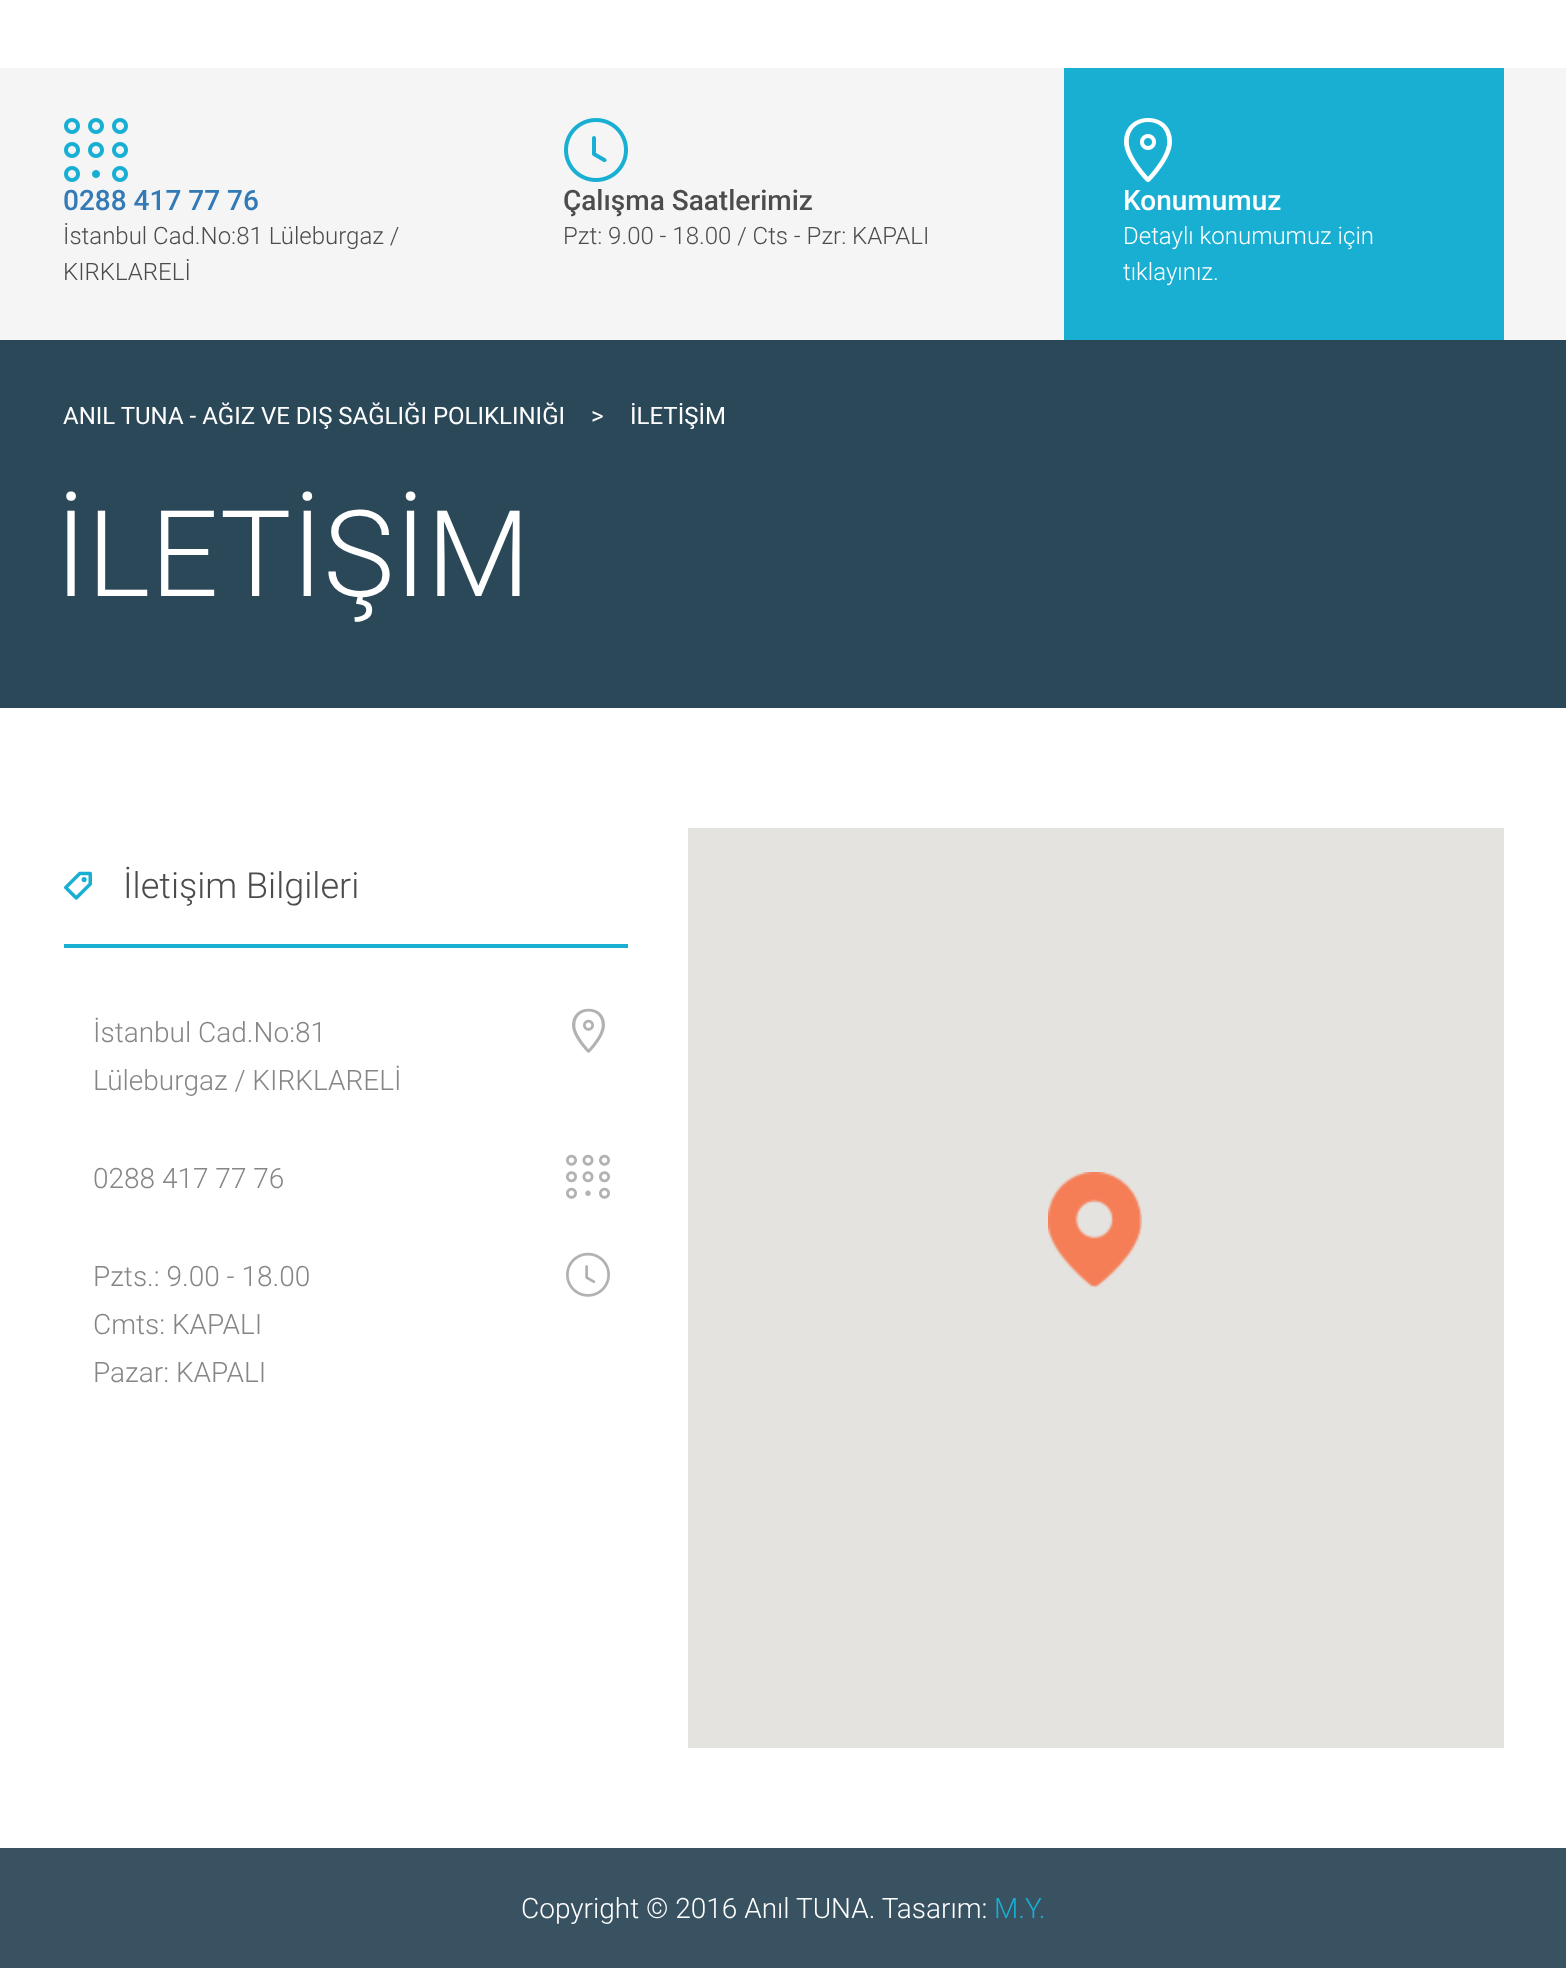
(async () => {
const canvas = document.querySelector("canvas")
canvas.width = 1566
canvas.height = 1968
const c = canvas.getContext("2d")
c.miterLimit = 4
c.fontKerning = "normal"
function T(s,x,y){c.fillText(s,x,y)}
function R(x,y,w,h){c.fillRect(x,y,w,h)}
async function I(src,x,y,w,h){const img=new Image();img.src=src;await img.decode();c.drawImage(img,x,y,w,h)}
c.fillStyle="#fff"
R(0,0,1566,1968)
c.fillStyle="#f5f5f5"
R(0,68,1566,272)
await I("1.png",64,118,64,64)
c.font="500 28px Roboto"
c.fillStyle="#337ab7"
T("0288 417 77 76",63,210)
c.font="300 24px Roboto"
c.fillStyle="#4c4c4c"
T("İstanbul Cad.No:81 Lüleburgaz /",63,244)
T("KIRKLARELİ",63,280)
await I("2.png",564,118,64,64)
c.font="500 28px Roboto"
T("Çalışma Saatlerimiz",563,210)
c.font="300 24px Roboto"
T("Pzt: 9.00 - 18.00 / Cts - Pzr: KAPALI",563,244)
c.fillStyle="#18afd3"
R(1064,68,440,272)
await I("3.png",1124,118,48,64)
c.font="500 28px Roboto"
c.fillStyle="#fff"
T("Konumumuz",1123,210)
c.font="300 24px Roboto"
T("Detaylı konumumuz için",1123,244)
T("tıklayınız.",1123,280)
c.fillStyle="#2b4859"
R(0,340,1566,368)
c.font="24px Roboto"
c.fillStyle="#fff"
T("ANIL TUNA - AĞIZ VE DIŞ SAĞLIĞI POLIKLINIĞI",63,424)
T(">",591,424)
T("İLETİŞİM",630,424)
c.font="300 120px Roboto"
T("İLETİŞİM",55,596)
c.fillStyle="#18afd3"
R(64,944,564,4)
await I("4.png",64,871,28,29)
c.font="300 36px Roboto"
c.fillStyle="#4c4c4c"
T("İletişim Bilgileri",123,898)
c.font="300 28px Roboto"
c.fillStyle="#868686"
T("İstanbul Cad.No:81",93,1042)
T("Lüleburgaz / KIRKLARELİ",93,1090)
await I("5.png",572,1008,33,45)
T("0288 417 77 76",93,1188)
await I("6.png",566,1154,44,45)
T("Pzts.: 9.00 - 18.00",93,1286)
T("Cmts: KAPALI",93,1334)
T("Pazar: KAPALI",93,1382)
await I("7.png",566,1252,44,45)
c.fillStyle="#e5e3df"
R(688,828,816,920)
await I("8.png",1048,1172,94,116)
c.fillStyle="#395261"
R(0,1848,1566,120)
c.fillStyle="#fff"
T("Copyright © 2016 Anıl TUNA. Tasarım:",521,1918)
c.fillStyle="#18afd3"
T("M.Y.",994,1918)
})()
